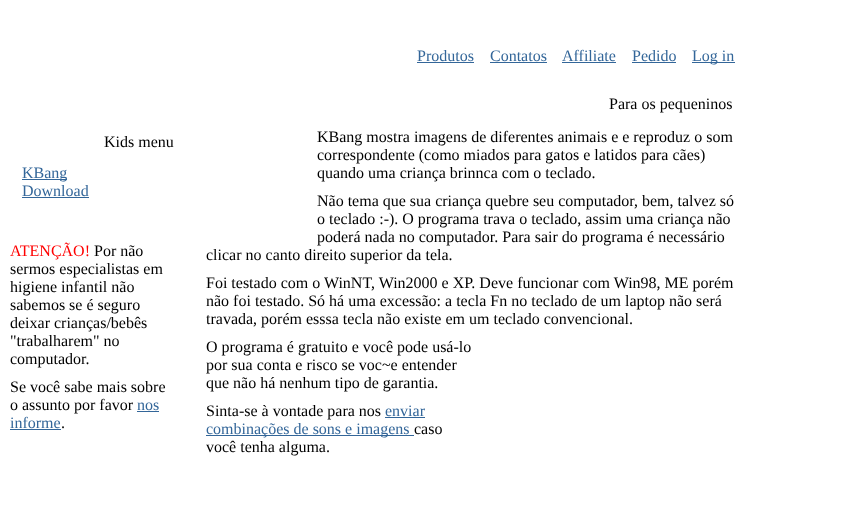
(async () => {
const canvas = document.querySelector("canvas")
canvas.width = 853
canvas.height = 521
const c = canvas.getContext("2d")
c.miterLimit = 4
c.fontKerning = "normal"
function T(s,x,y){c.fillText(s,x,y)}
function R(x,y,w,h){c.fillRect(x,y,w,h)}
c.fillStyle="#fff"
R(0,0,853,521)
c.font="16px Liberation Serif"
c.fillStyle="#369"
T("Produtos",417,61)
R(417,62,57,1)
T("Contatos",490,61)
R(490,62,57,1)
T("Affiliate",562,61)
R(562,62,54,1)
T("Pedido",632,61)
R(632,62,44,1)
R(692,62,43,1)
T("Log in",692,61)
c.fillStyle="#000"
T("Kids menu",104,147)
c.fillStyle="#369"
R(22,179,45,1)
T("KBang",22,178)
T("Download",22,196)
R(22,197,67,1)
c.fillStyle="#f00"
T("ATENÇÃO!",10,256)
c.fillStyle="#000"
T("Por não",94,256)
T("sermos especialistas em",10,274)
T("higiene infantil não",10,292)
T("sabemos se é seguro",10,310)
T("deixar crianças/bebês",10,328)
T("\"trabalharem\" no",10,346)
T("computador.",10,364)
T("Se você sabe mais sobre",10,392)
T("o assunto por favor",10,410)
c.fillStyle="#369"
T("nos",137,410)
R(137,411,22,1)
T("informe",10,428)
R(10,429,51,1)
c.fillStyle="#000"
T(".",61,428)
T("Para os pequeninos",609,109)
T("KBang mostra imagens de diferentes animais e e reproduz o som",317,142)
T("correspondente (como miados para gatos e latidos para cães)",317,160)
T("quando uma criança brinnca com o teclado.",317,178)
T("Não tema que sua criança quebre seu computador, bem, talvez só",317,206)
T("o teclado :-). O programa trava o teclado, assim uma criança não",317,224)
T("poderá nada no computador. Para sair do programa é necessário",317,242)
T("clicar no canto direito superior da tela.",206,260)
T("Foi testado com o WinNT, Win2000 e XP. Deve funcionar com Win98, ME porém",206,288)
T("não foi testado. Só há uma excessão: a tecla Fn no teclado de um laptop não será",206,306)
T("travada, porém esssa tecla não existe em um teclado convencional.",206,324)
T("O programa é gratuito e você pode usá-lo",206,352)
T("por sua conta e risco se voc~e entender",206,370)
T("que não há nenhum tipo de garantia.",206,388)
T("Sinta-se à vontade para nos",206,416)
c.fillStyle="#369"
T("enviar",385,416)
R(385,417,40,1)
R(206,435,208,1)
T("combinações de sons e imagens",206,434)
c.fillStyle="#000"
T("caso",414,434)
T("você tenha alguma.",206,452)
})()
